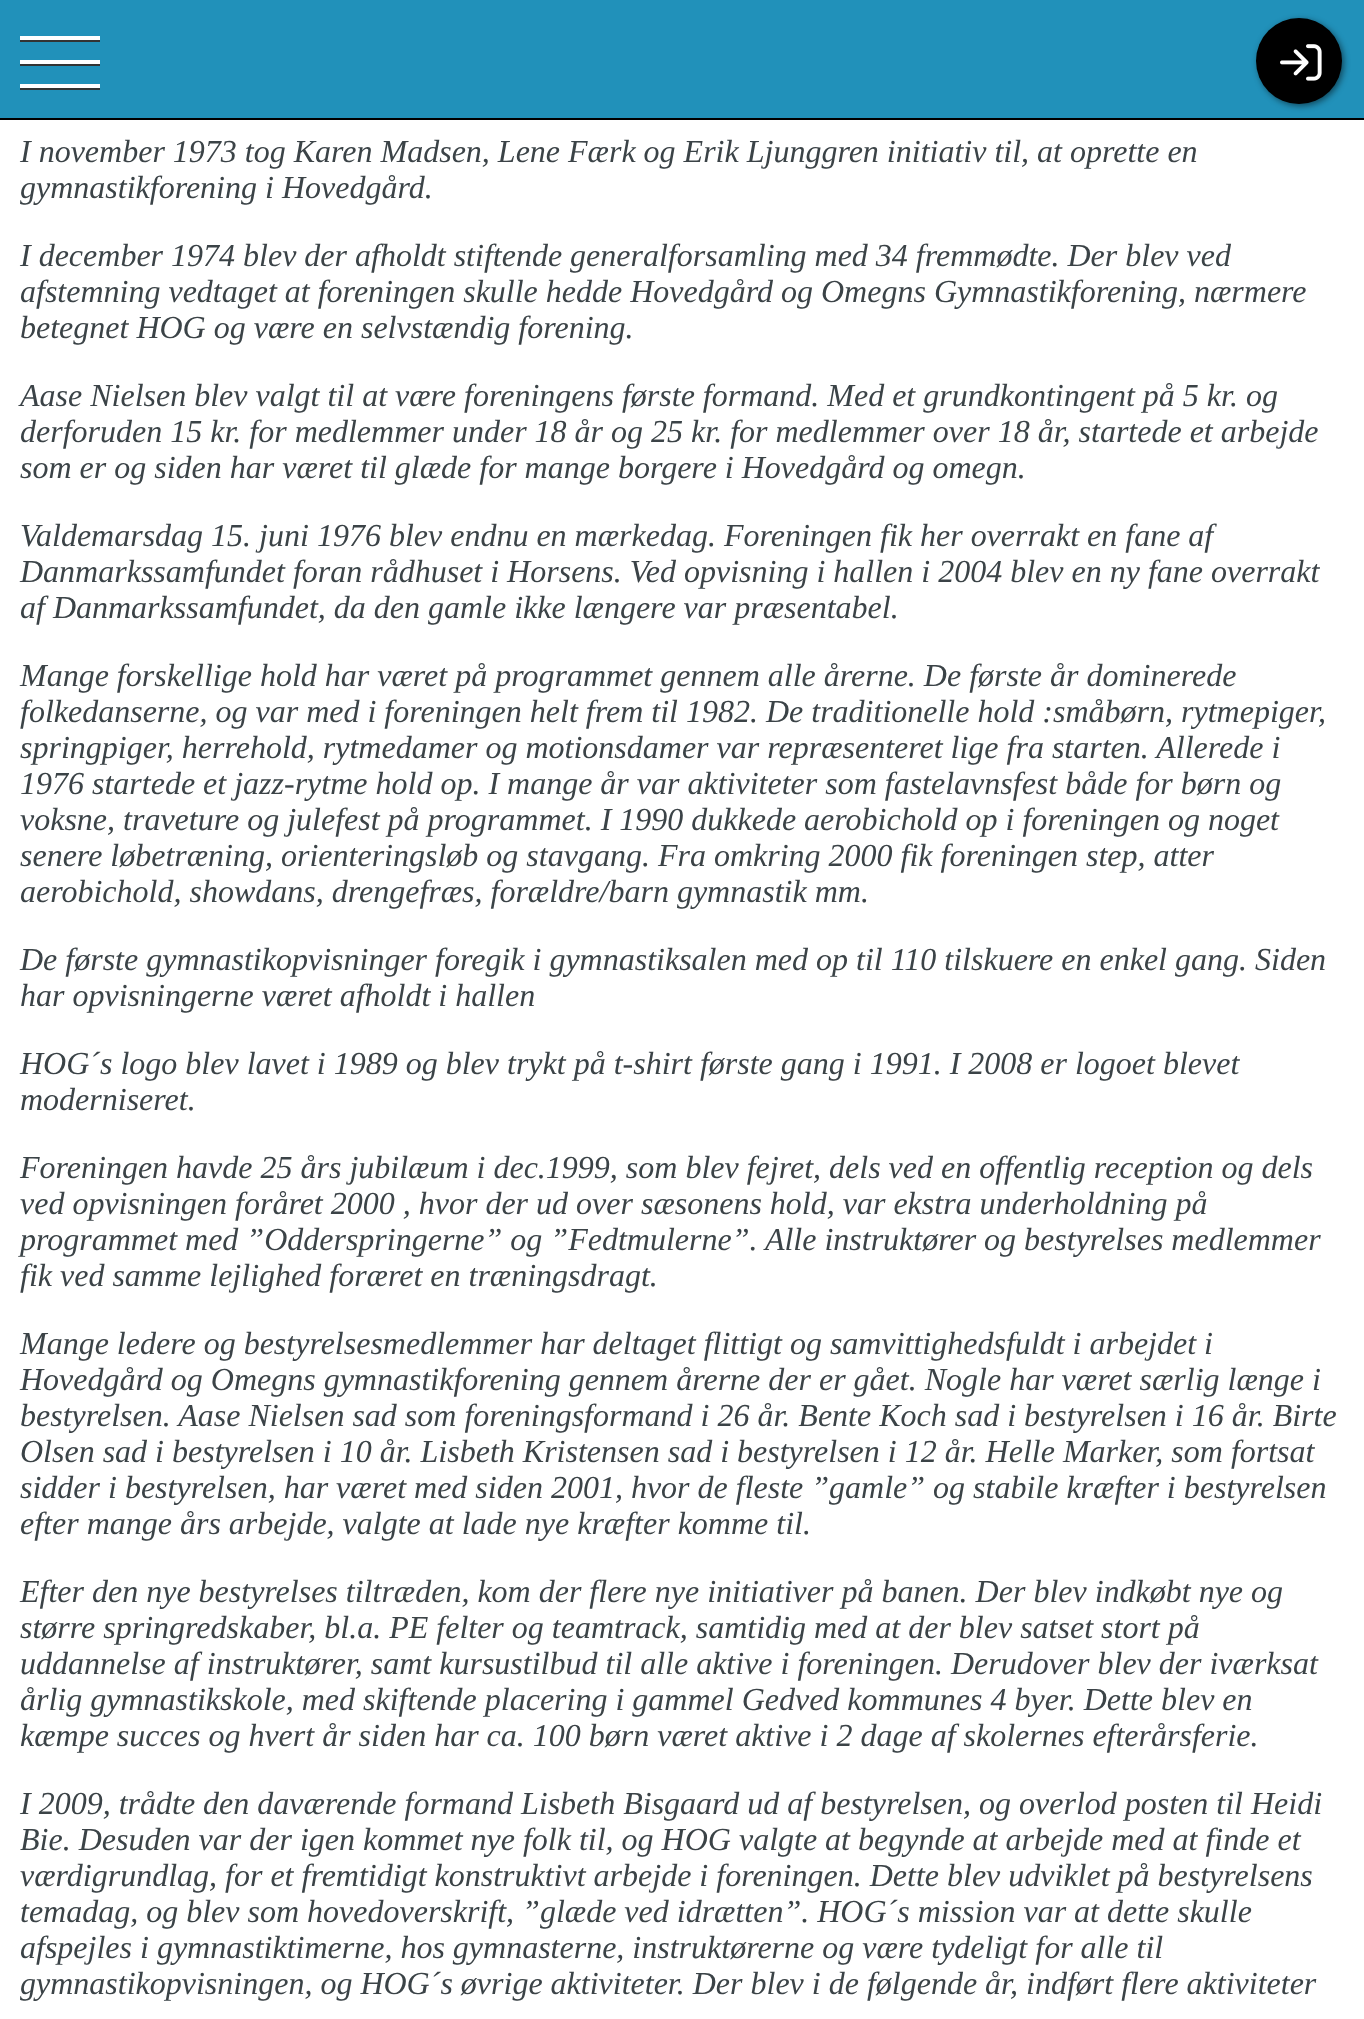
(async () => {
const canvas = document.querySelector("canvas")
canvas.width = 1364
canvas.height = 2019
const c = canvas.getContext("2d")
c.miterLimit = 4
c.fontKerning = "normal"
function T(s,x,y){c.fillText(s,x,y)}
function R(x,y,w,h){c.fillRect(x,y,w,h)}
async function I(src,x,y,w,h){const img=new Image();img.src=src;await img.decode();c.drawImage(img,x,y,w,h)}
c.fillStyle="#fff"
R(0,0,1364,2019)
c.fillStyle="#2191ba"
R(0,0,1364,118)
c.fillStyle="#000"
R(0,118,1364,2)
c.fillStyle="#333"
R(20,40,80,2)
c.fillStyle="#fff"
R(20,36,80,4)
c.fillStyle="#333"
R(20,64,80,2)
c.fillStyle="#fff"
R(20,60,80,4)
c.fillStyle="#333"
R(20,88,80,2)
c.fillStyle="#fff"
R(20,84,80,4)
c.fillStyle="#00000080"
c.filter="blur(3px)"
c.beginPath()
c.roundRect(1258,20,86,86,43)
c.fill()
c.filter="none"
c.fillStyle="#000"
c.beginPath()
c.arc(1299,61,43,0,7)
c.fill()
await I("1.png",1280,44,42,37)
c.font="italic 32px Liberation Serif"
c.fillStyle="#3b4347"
T("I november 1973 tog Karen Madsen, Lene Færk og Erik Ljunggren initiativ til, at oprette en",20,162)
T("gymnastikforening i Hovedgård.",20,198)
T("I december 1974 blev der afholdt stiftende generalforsamling med 34 fremmødte. Der blev ved",20,266)
T("afstemning vedtaget at foreningen skulle hedde Hovedgård og Omegns Gymnastikforening, nærmere",20,302)
T("betegnet HOG og være en selvstændig forening.",20,338)
T("Aase Nielsen blev valgt til at være foreningens første formand. Med et grundkontingent på 5 kr. og",20,406)
T("derforuden 15 kr. for medlemmer under 18 år og 25 kr. for medlemmer over 18 år, startede et arbejde",20,442)
T("som er og siden har været til glæde for mange borgere i Hovedgård og omegn.",20,478)
T("Valdemarsdag 15. juni 1976 blev endnu en mærkedag. Foreningen fik her overrakt en fane af",20,546)
T("Danmarkssamfundet foran rådhuset i Horsens. Ved opvisning i hallen i 2004 blev en ny fane overrakt",20,582)
T("af Danmarkssamfundet, da den gamle ikke længere var præsentabel.",20,618)
T("Mange forskellige hold har været på programmet gennem alle årerne. De første år dominerede",20,686)
T("folkedanserne, og var med i foreningen helt frem til 1982. De traditionelle hold :småbørn, rytmepiger,",20,722)
T("springpiger, herrehold, rytmedamer og motionsdamer var repræsenteret lige fra starten. Allerede i",20,758)
T("1976 startede et jazz-rytme hold op. I mange år var aktiviteter som fastelavnsfest både for børn og",20,794)
T("voksne, traveture og julefest på programmet. I 1990 dukkede aerobichold op i foreningen og noget",20,830)
T("senere løbetræning, orienteringsløb og stavgang. Fra omkring 2000 fik foreningen step, atter",20,866)
T("aerobichold, showdans, drengefræs, forældre/barn gymnastik mm.",20,902)
T("De første gymnastikopvisninger foregik i gymnastiksalen med op til 110 tilskuere en enkel gang. Siden",20,970)
T("har opvisningerne været afholdt i hallen",20,1006)
T("HOG´s logo blev lavet i 1989 og blev trykt på t-shirt første gang i 1991. I 2008 er logoet blevet",20,1074)
T("moderniseret.",20,1110)
T("Foreningen havde 25 års jubilæum i dec.1999, som blev fejret, dels ved en offentlig reception og dels",20,1178)
T("ved opvisningen foråret 2000 , hvor der ud over sæsonens hold, var ekstra underholdning på",20,1214)
T("programmet med ”Odderspringerne” og ”Fedtmulerne”. Alle instruktører og bestyrelses medlemmer",20,1250)
T("fik ved samme lejlighed foræret en træningsdragt.",20,1286)
T("Mange ledere og bestyrelsesmedlemmer har deltaget flittigt og samvittighedsfuldt i arbejdet i",20,1354)
T("Hovedgård og Omegns gymnastikforening gennem årerne der er gået. Nogle har været særlig længe i",20,1390)
T("bestyrelsen. Aase Nielsen sad som foreningsformand i 26 år. Bente Koch sad i bestyrelsen i 16 år. Birte",20,1426)
T("Olsen sad i bestyrelsen i 10 år. Lisbeth Kristensen sad i bestyrelsen i 12 år. Helle Marker, som fortsat",20,1462)
T("sidder i bestyrelsen, har været med siden 2001, hvor de fleste ”gamle” og stabile kræfter i bestyrelsen",20,1498)
T("efter mange års arbejde, valgte at lade nye kræfter komme til.",20,1534)
T("Efter den nye bestyrelses tiltræden, kom der flere nye initiativer på banen. Der blev indkøbt nye og",20,1602)
T("større springredskaber, bl.a. PE felter og teamtrack, samtidig med at der blev satset stort på",20,1638)
T("uddannelse af instruktører, samt kursustilbud til alle aktive i foreningen. Derudover blev der iværksat",20,1674)
T("årlig gymnastikskole, med skiftende placering i gammel Gedved kommunes 4 byer. Dette blev en",20,1710)
T("kæmpe succes og hvert år siden har ca. 100 børn været aktive i 2 dage af skolernes efterårsferie.",20,1746)
T("I 2009, trådte den daværende formand Lisbeth Bisgaard ud af bestyrelsen, og overlod posten til Heidi",20,1814)
T("Bie. Desuden var der igen kommet nye folk til, og HOG valgte at begynde at arbejde med at finde et",20,1850)
T("værdigrundlag, for et fremtidigt konstruktivt arbejde i foreningen. Dette blev udviklet på bestyrelsens",20,1886)
T("temadag, og blev som hovedoverskrift, ”glæde ved idrætten”. HOG´s mission var at dette skulle",20,1922)
T("afspejles i gymnastiktimerne, hos gymnasterne, instruktørerne og være tydeligt for alle til",20,1958)
T("gymnastikopvisningen, og HOG´s øvrige aktiviteter. Der blev i de følgende år, indført flere aktiviteter",20,1994)
})()
